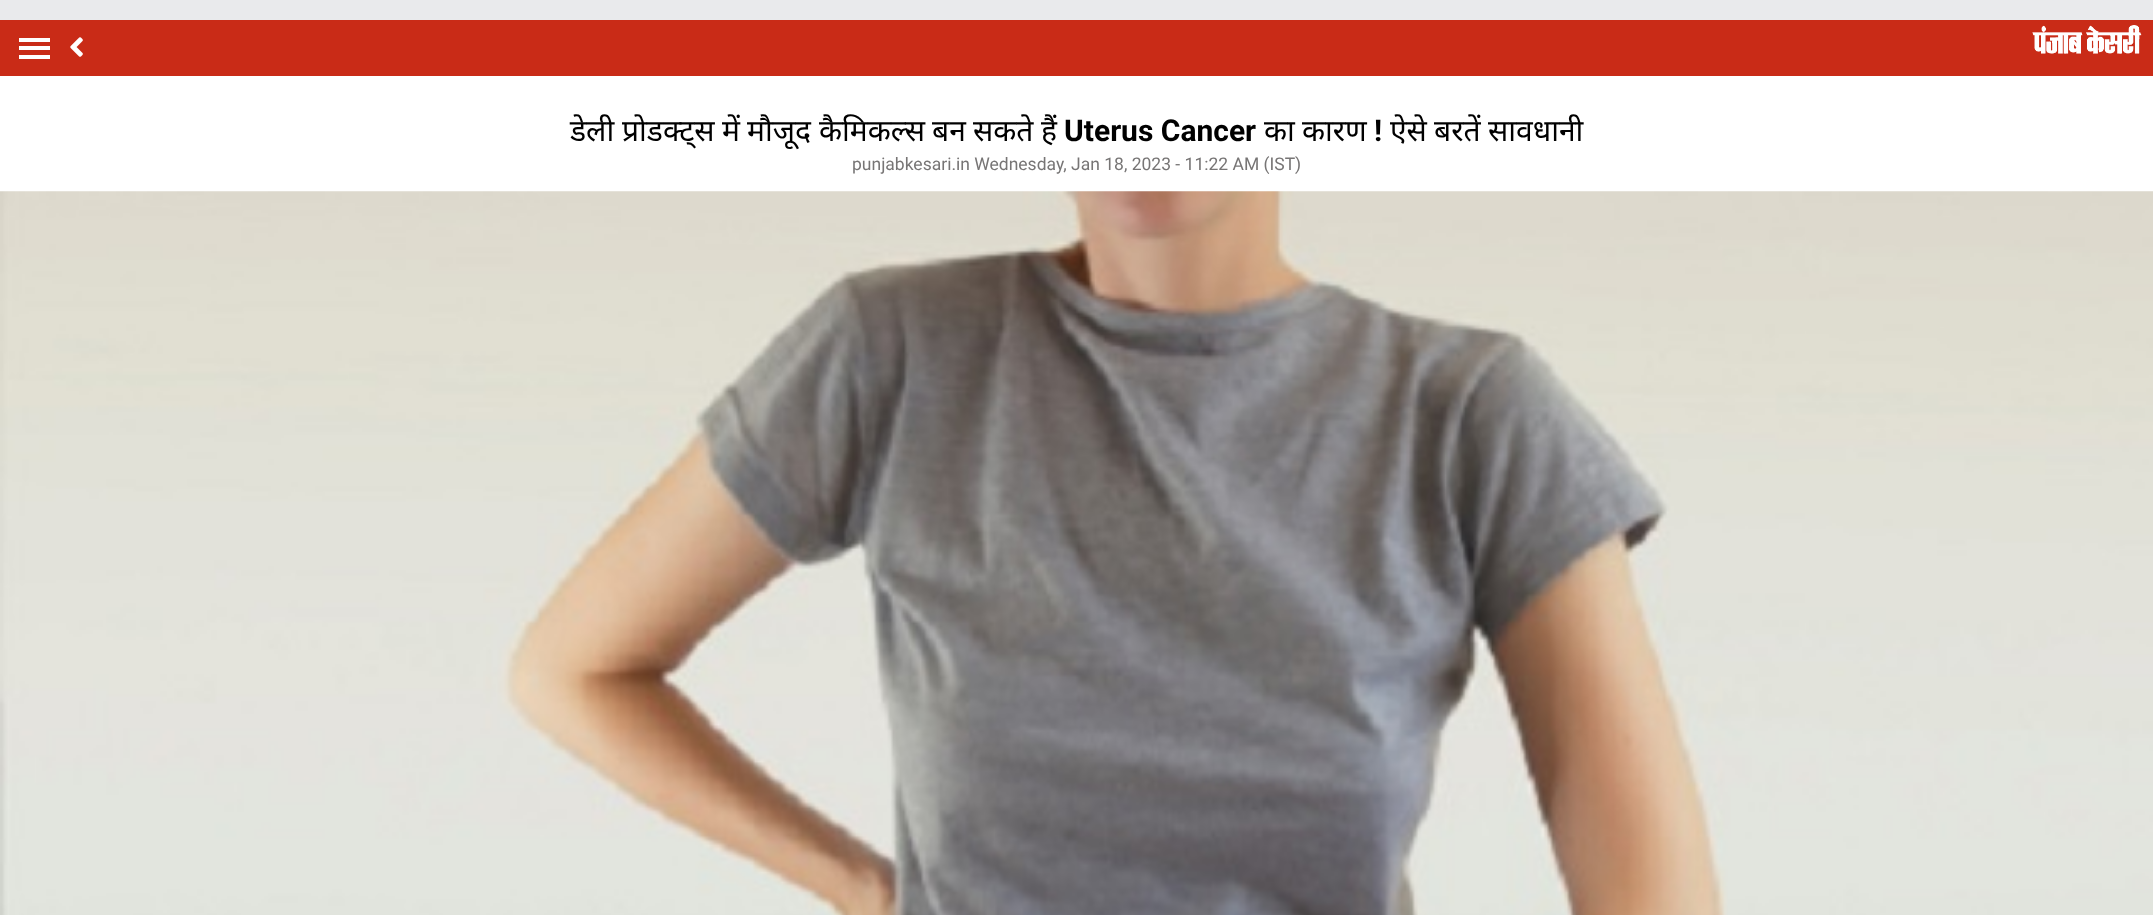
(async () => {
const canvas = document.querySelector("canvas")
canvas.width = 2153
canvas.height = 915
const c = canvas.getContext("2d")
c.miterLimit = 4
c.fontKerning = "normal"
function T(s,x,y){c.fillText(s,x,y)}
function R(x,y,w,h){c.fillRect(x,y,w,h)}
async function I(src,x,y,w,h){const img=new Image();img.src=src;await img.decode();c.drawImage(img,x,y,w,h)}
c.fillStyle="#e9eaec"
R(0,0,2153,915)
c.fillStyle="#c92b17"
R(0,20,2153,56)
c.fillStyle="#fff"
R(19,38,31,4)
R(19,46,31,4)
R(19,55,31,4)
await I("1.png",70,37,13,20)
await I("2.png",2032,25,110,29)
R(0,76,2153,116)
c.font="30px Noto Sans"
c.fillStyle="#000"
T("डेली",570,141)
T("प्रोडक्ट्स",622,141)
T("में",722,141)
T("मौजूद",747,141)
T("कैमिकल्स",819,141)
T("सकते",973,141)
T("हैं",1041,141)
c.font="bold 30px Roboto"
T("Uterus Cancer",1064,141)
T("!",1374,141)
c.font="30px Noto Sans"
T("ऐसे",1390,141)
T("बरतें",1434,141)
T("सावधानी",1488,141)
T("बन",932,141)
T("का",1264,141)
T("कारण",1302,141)
c.font="17.5px Roboto"
c.fillStyle="#777575"
T("punjabkesari.in Wednesday, Jan 18, 2023 - 11:22 AM (IST)",852,170)
await I("3.png",0,191,2153,724)
})()
